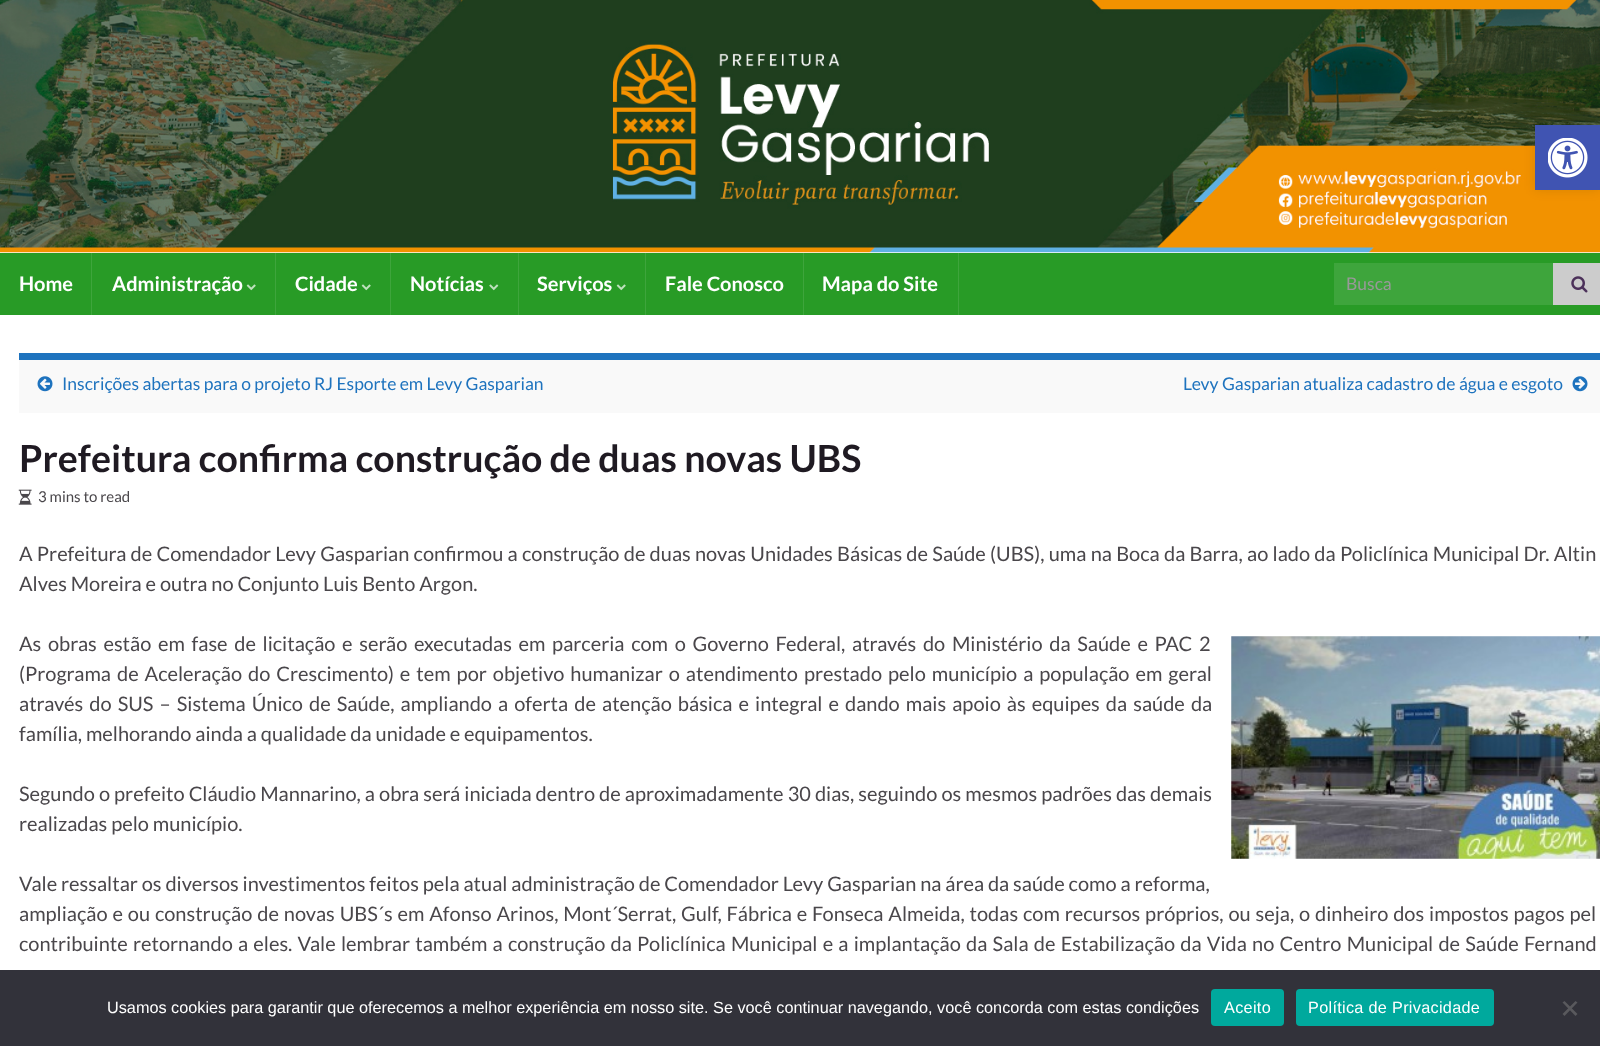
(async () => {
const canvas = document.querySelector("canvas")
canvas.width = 1600
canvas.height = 1046
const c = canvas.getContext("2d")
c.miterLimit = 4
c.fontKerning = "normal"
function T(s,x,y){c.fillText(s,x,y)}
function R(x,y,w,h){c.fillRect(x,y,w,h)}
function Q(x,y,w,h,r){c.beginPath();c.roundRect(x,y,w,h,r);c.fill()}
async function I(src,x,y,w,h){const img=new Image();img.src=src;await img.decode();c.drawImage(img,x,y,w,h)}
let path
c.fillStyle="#fff"
R(0,0,1600,1046)
await I("2.png",0,0,1600,253)
c.fillStyle="#0000001a"
c.filter="blur(6px)"
c.beginPath()
c.rect(1535,125,65,65)
c.fill()
c.filter="none"
c.fillStyle="#4054b2"
R(1535,125,65,65)
await I("1.png",1548,138,40,40)
c.fillStyle="#289b26"
R(0,253,1600,62)
c.fillStyle="#3ea53c"
R(91,253,1,62)
c.font="bold 20px Lato"
c.fillStyle="#fff"
T("Home",19,291)
c.fillStyle="#3ea53c"
R(275,253,1,62)
c.fillStyle="#fff"
T("Administração",112,291)
await I("3.png",246,284,10,7)
c.fillStyle="#3ea53c"
R(390,253,1,62)
c.fillStyle="#fff"
T("Cidade",295,291)
await I("3.png",361,284,10,7)
c.fillStyle="#3ea53c"
R(518,253,1,62)
c.fillStyle="#fff"
T("Notícias",410,291)
await I("4.png",489,284,10,7)
c.fillStyle="#3ea53c"
R(645,253,1,62)
c.fillStyle="#fff"
T("Serviços",537,291)
await I("3.png",616,284,10,7)
c.fillStyle="#3ea53c"
R(803,253,1,62)
c.fillStyle="#fff"
T("Fale Conosco",665,291)
c.fillStyle="#3ea53c"
R(958,253,1,62)
c.fillStyle="#fff"
T("Mapa do Site",822,291)
c.fillStyle="#3ea53c"
R(1334,263,219,42)
c.font="17.5px Lato"
c.fillStyle="#999"
T("Busca",1346,290)
c.fillStyle="#ccc"
R(1553,263,47,42)
await I("5.png",1571,276,17,17)
c.fillStyle="#f9f9f9"
R(19,360,1581,53)
c.fillStyle="#1e73be"
R(19,353,1581,7)
await I("6.png",37,376,16,16)
T("Inscrições abertas para o projeto RJ Esporte em Levy Gasparian",62,390)
T("Levy Gasparian atualiza cadastro de água e esgoto",1183,390)
await I("7.png",1572,376,16,16)
c.font="bold 37.5px Lato"
c.fillStyle="#1f1a22"
T("Prefeitura confirma construção de duas novas UBS",19,472)
await I("8.png",18,489,14,16)
c.font="15px Lato"
c.fillStyle="#4a474b"
T("3 mins to read",38,502)
c.wordSpacing="0.4px"
c.font="20px Lato"
T("A Prefeitura de Comendador Levy Gasparian confirmou a construção de duas novas Unidades Básicas de Saúde (UBS), uma na Boca da Barra, ao lado da Policlínica Municipal Dr. Altin",19,561)
c.wordSpacing="0px"
T("Alves Moreira e outra no Conjunto Luis Bento Argon.",19,591)
c.wordSpacing="2.8px"
T("As obras estão em fase de licitação e serão executadas em parceria com o Governo Federal, através do Ministério da Saúde e PAC 2",19,651)
await I("9.png",1231,636,369,223)
c.wordSpacing="2.1px"
T("(Programa de Aceleração do Crescimento) e tem por objetivo humanizar o atendimento prestado pelo município a população em geral",19,681)
c.wordSpacing="2.2px"
T("através do SUS – Sistema Único de Saúde, ampliando a oferta de atenção básica e integral e dando mais apoio às equipes da saúde da",19,711)
c.wordSpacing="0px"
T("família, melhorando ainda a qualidade da unidade e equipamentos.",19,741)
c.wordSpacing="0.2px"
T("Segundo o prefeito Cláudio Mannarino, a obra será iniciada dentro de aproximadamente 30 dias, seguindo os mesmos padrões das demais",19,801)
c.wordSpacing="0px"
T("realizadas pelo município.",19,831)
T("Vale ressaltar os diversos investimentos feitos pela atual administração de Comendador Levy Gasparian na área da saúde como a reforma,",19,891)
c.wordSpacing="1px"
T("ampliação e ou construção de novas UBS´s em Afonso Arinos, Mont´Serrat, Gulf, Fábrica e Fonseca Almeida, todas com recursos próprios, ou seja, o dinheiro dos impostos pagos pel",19,921)
c.wordSpacing="1.35px"
T("contribuinte retornando a eles. Vale lembrar também a construção da Policlínica Municipal e a implantação da Sala de Estabilização da Vida no Centro Municipal de Saúde Fernand",19,951)
c.fillStyle="#32323a"
R(0,970,1600,76)
c.wordSpacing="0px"
c.font="16.25px Liberation Sans"
c.fillStyle="#fff"
T("Usamos cookies para garantir que oferecemos a melhor experiência em nosso site. Se você continuar navegando, você concorda com estas condições",107,1013)
c.fillStyle="#00a99d"
Q(1211,989,73,37,4)
c.letterSpacing="0.3px"
c.fillStyle="#fff"
T("Aceito",1224,1013)
c.fillStyle="#00a99d"
Q(1296,989,198,37,4)
c.fillStyle="#fff"
T("Política de Privacidade",1308,1013)
c.fillStyle="#59595d"
path = new Path2D("M1575.5 1001l2 1.5l-13 13.5l-2-2z")
c.fill(path)
path = new Path2D("M1562.5 1002.5l2-1.5l13 13l-2 2z")
c.fill(path)
})()
